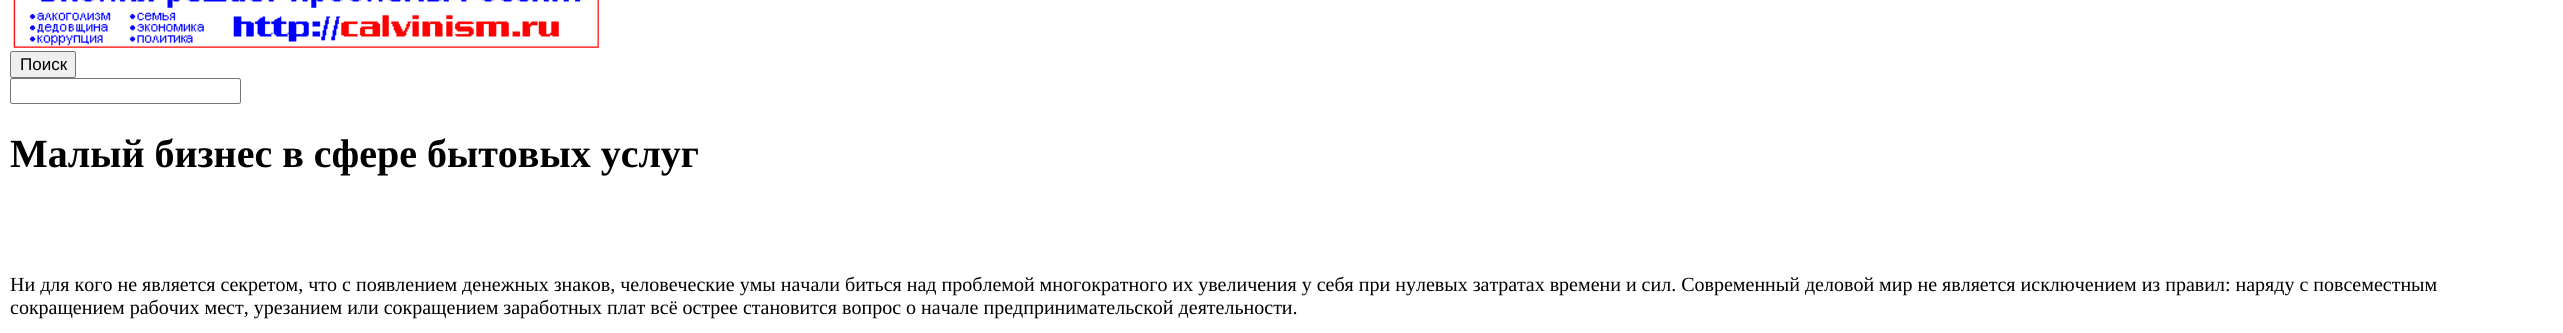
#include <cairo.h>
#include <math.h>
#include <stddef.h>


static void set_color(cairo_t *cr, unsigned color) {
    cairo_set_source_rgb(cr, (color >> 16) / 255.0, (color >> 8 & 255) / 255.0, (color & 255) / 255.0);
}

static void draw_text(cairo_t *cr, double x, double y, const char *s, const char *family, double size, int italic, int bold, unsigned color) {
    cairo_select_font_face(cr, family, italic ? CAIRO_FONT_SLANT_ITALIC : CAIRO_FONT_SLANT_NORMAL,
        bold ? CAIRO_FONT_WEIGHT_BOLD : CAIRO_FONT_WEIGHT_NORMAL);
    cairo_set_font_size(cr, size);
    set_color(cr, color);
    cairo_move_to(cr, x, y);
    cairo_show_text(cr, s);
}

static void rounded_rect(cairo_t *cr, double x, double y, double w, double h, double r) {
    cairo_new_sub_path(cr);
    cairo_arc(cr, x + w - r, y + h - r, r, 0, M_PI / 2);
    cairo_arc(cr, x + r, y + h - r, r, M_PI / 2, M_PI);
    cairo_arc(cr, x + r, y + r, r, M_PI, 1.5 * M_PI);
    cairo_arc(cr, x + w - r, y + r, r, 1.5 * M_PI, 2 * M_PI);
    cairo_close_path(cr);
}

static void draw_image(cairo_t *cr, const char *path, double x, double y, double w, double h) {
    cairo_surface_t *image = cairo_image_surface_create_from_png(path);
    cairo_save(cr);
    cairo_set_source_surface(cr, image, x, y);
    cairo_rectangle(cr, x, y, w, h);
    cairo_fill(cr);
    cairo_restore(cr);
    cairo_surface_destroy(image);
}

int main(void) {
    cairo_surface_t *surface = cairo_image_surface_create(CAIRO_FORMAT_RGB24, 2563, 333);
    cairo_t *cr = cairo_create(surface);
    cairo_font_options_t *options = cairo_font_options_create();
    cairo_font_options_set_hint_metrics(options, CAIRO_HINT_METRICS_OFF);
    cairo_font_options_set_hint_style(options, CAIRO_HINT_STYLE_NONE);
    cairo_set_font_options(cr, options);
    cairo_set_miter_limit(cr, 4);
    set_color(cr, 0xFFFFFF);
    cairo_paint(cr);
    draw_image(cr, "assets/img1.png", 13, 0, 586, 48);
    set_color(cr, 0xEFEFEF);
    rounded_rect(cr, 10.5, 51.5, 65, 26, 2);
    cairo_fill_preserve(cr);
    set_color(cr, 0x767676);
    cairo_set_line_width(cr, 1);
    cairo_stroke(cr);
    draw_text(cr, 20, 70, "Поиск", "Liberation Sans", 17, 0, 0, 0x000000);
    rounded_rect(cr, 10.5, 78.5, 230, 25, 2);
    set_color(cr, 0x767676);
    cairo_stroke(cr);
    draw_text(cr, 10, 167, "Малый бизнес в сфере бытовых услуг", "Liberation Serif", 40, 0, 1, 0x000000);
    draw_text(cr, 10, 291, "Ни для кого не является секретом, что с появлением денежных знаков, человеческие умы начали биться над проблемой многократного их увеличения у себя при нулевых затратах времени и сил. Современный деловой мир не является исключением из правил: наряду с повсеместным", "Liberation Serif", 20, 0, 0, 0x000000);
    draw_text(cr, 10, 314, "сокращением рабочих мест, урезанием или сокращением заработных плат всё острее становится вопрос о начале предпринимательской деятельности.", "Liberation Serif", 20, 0, 0, 0x000000);
    cairo_surface_write_to_png(surface, "output.png");
    cairo_font_options_destroy(options);
    cairo_destroy(cr);
    cairo_surface_destroy(surface);
    return 0;
}
